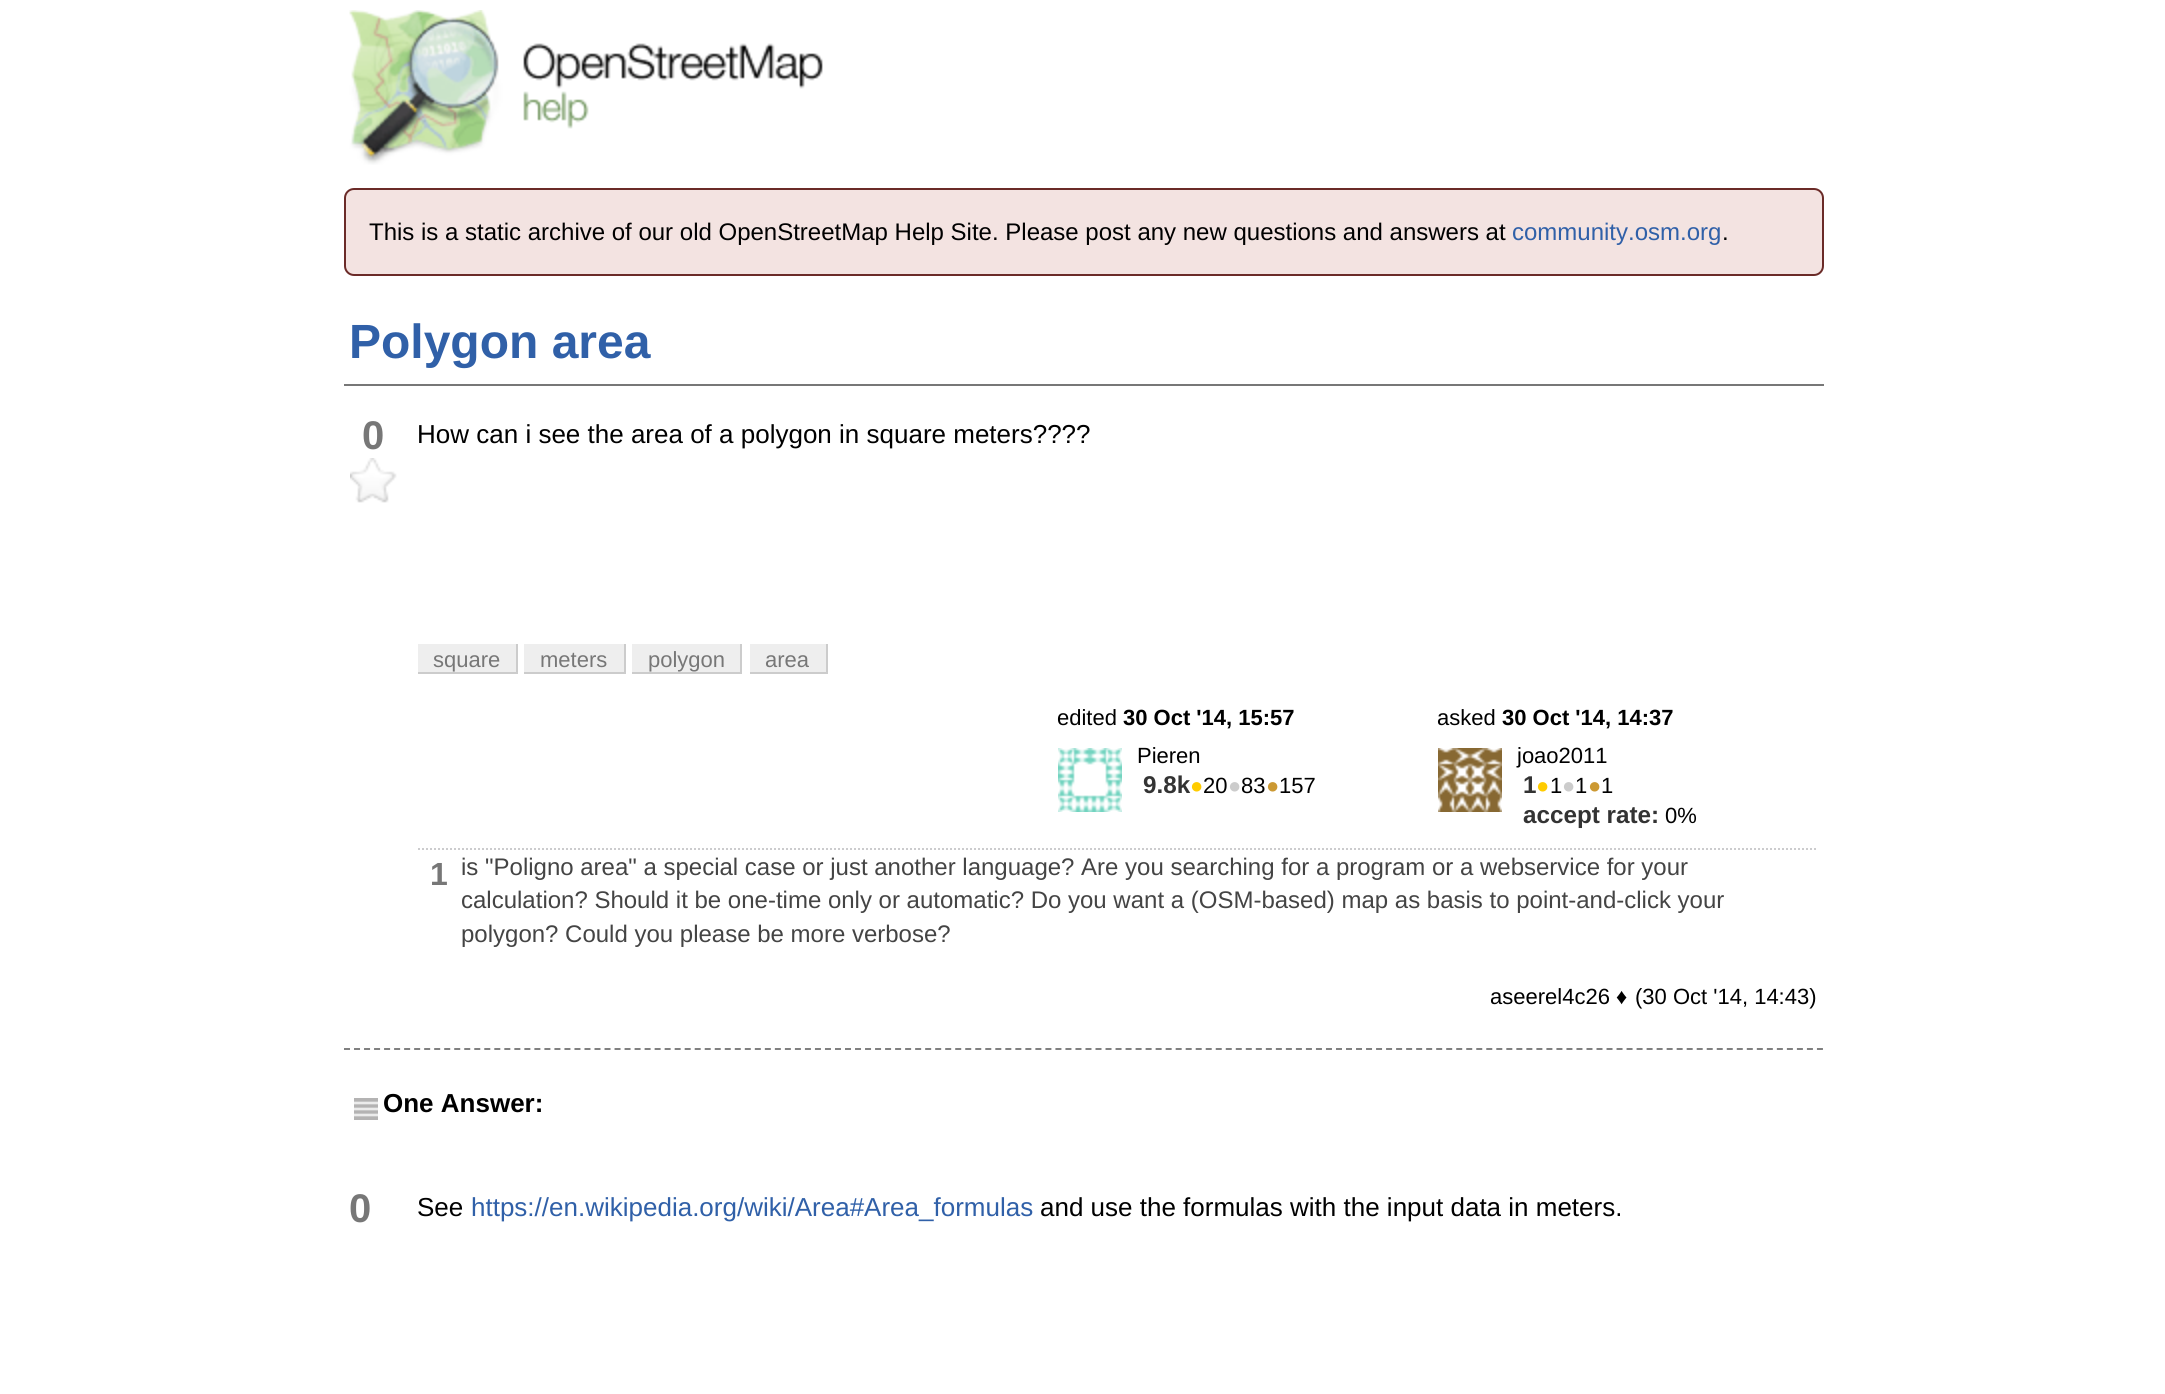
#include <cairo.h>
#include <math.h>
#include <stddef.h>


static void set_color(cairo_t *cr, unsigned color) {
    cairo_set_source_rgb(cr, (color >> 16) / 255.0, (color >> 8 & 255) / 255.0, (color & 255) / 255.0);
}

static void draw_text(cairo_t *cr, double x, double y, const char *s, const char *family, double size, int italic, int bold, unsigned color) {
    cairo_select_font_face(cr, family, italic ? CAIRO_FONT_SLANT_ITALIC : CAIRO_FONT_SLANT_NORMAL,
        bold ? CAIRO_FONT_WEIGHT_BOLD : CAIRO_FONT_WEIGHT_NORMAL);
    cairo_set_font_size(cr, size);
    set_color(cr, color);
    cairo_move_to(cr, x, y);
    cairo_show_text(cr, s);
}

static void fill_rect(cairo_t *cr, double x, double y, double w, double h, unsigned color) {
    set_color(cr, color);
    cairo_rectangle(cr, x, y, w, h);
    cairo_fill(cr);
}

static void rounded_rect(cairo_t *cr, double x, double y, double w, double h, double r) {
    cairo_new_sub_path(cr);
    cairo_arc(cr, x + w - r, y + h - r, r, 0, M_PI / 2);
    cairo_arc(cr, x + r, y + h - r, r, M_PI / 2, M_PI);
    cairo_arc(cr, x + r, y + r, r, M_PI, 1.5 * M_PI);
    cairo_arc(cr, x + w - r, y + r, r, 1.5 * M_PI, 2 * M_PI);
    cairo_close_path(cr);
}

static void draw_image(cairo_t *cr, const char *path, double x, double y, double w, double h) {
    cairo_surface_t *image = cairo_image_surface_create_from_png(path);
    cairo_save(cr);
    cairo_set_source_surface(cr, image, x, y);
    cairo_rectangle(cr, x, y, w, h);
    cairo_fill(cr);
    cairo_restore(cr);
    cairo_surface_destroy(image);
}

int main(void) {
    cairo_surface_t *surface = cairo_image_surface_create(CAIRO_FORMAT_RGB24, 2165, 1394);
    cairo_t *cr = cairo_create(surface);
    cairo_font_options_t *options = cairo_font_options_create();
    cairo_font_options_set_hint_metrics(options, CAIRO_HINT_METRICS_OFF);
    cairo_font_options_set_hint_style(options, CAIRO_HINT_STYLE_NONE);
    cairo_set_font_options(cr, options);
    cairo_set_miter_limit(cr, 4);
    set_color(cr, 0xFFFFFF);
    cairo_paint(cr);
    draw_image(cr, "assets/img1.png", 349, 10, 474, 155);
    set_color(cr, 0xF3E3E1);
    rounded_rect(cr, 345, 189, 1478, 86, 9);
    cairo_fill_preserve(cr);
    set_color(cr, 0x6B2B28);
    cairo_stroke(cr);
    draw_text(cr, 369, 240, "This is a static archive of our old OpenStreetMap Help Site. Please post any new questions and answers at", "Liberation Sans", 24, 0, 0, 0x000000);
    draw_text(cr, 1512, 240, "community.osm.org", "Liberation Sans", 24, 0, 0, 0x3060A8);
    draw_text(cr, 1722, 240, ".", "Liberation Sans", 24, 0, 0, 0x000000);
    fill_rect(cr, 344, 384, 1480, 2, 0x777777);
    draw_text(cr, 349, 358, "Polygon area", "Liberation Sans", 48, 0, 1, 0x3060A8);
    draw_text(cr, 362, 449, "0", "Liberation Sans", 40, 0, 1, 0x777777);
    draw_image(cr, "assets/img2.png", 350, 458, 47, 45);
    draw_text(cr, 417, 443, "How can i see the area of a polygon in square meters?\077?\077", "Liberation Sans", 26, 0, 0, 0x000000);
    fill_rect(cr, 418, 644, 98, 28, 0xEEEEEE);
    draw_text(cr, 433, 667, "square", "Liberation Sans", 22, 0, 0, 0x777777);
    fill_rect(cr, 516, 644, 2, 30, 0xCCCCCC);
    fill_rect(cr, 418, 672, 100, 2, 0xCCCCCC);
    fill_rect(cr, 524, 644, 100, 28, 0xEEEEEE);
    draw_text(cr, 540, 667, "meters", "Liberation Sans", 22, 0, 0, 0x777777);
    fill_rect(cr, 624, 644, 2, 30, 0xCCCCCC);
    fill_rect(cr, 524, 672, 102, 2, 0xCCCCCC);
    fill_rect(cr, 632, 644, 108, 28, 0xEEEEEE);
    draw_text(cr, 648, 667, "polygon", "Liberation Sans", 22, 0, 0, 0x777777);
    fill_rect(cr, 740, 644, 2, 30, 0xCCCCCC);
    fill_rect(cr, 632, 672, 110, 2, 0xCCCCCC);
    fill_rect(cr, 750, 644, 76, 28, 0xEEEEEE);
    draw_text(cr, 765, 667, "area", "Liberation Sans", 22, 0, 0, 0x777777);
    fill_rect(cr, 826, 644, 2, 30, 0xCCCCCC);
    fill_rect(cr, 750, 672, 78, 2, 0xCCCCCC);
    draw_text(cr, 1057, 725, "edited", "Liberation Sans", 22, 0, 0, 0x000000);
    draw_text(cr, 1123, 725, "30 Oct '14, 15:57", "Liberation Sans", 22, 0, 1, 0x000000);
    draw_image(cr, "assets/img3.png", 1058, 748, 64, 64);
    draw_text(cr, 1137, 763, "Pieren", "Liberation Sans", 22, 0, 0, 0x000000);
    draw_text(cr, 1143, 793, "9.8k", "Liberation Sans", 24.25, 0, 1, 0x333333);
    draw_text(cr, 1190, 793, "●", "Liberation Sans", 22, 0, 0, 0xFFCC00);
    draw_text(cr, 1203, 793, "20", "Liberation Sans", 22, 0, 0, 0x000000);
    draw_text(cr, 1228, 793, "●", "Liberation Sans", 22, 0, 0, 0xCCCCCC);
    draw_text(cr, 1241, 793, "83", "Liberation Sans", 22, 0, 0, 0x000000);
    draw_text(cr, 1266, 793, "●", "Liberation Sans", 22, 0, 0, 0xCC9933);
    draw_text(cr, 1279, 793, "157", "Liberation Sans", 22, 0, 0, 0x000000);
    draw_text(cr, 1437, 725, "asked", "Liberation Sans", 22, 0, 0, 0x000000);
    draw_text(cr, 1502, 725, "30 Oct '14, 14:37", "Liberation Sans", 22, 0, 1, 0x000000);
    draw_image(cr, "assets/img4.png", 1438, 748, 64, 64);
    draw_text(cr, 1517, 763, "joao2011", "Liberation Sans", 22, 0, 0, 0x000000);
    draw_text(cr, 1523, 793, "1", "Liberation Sans", 24.25, 0, 1, 0x333333);
    draw_text(cr, 1536, 793, "●", "Liberation Sans", 22, 0, 0, 0xFFCC00);
    draw_text(cr, 1550, 793, "1", "Liberation Sans", 22, 0, 0, 0x000000);
    draw_text(cr, 1562, 793, "●", "Liberation Sans", 22, 0, 0, 0xCCCCCC);
    draw_text(cr, 1575, 793, "1", "Liberation Sans", 22, 0, 0, 0x000000);
    draw_text(cr, 1588, 793, "●", "Liberation Sans", 22, 0, 0, 0xCC9933);
    draw_text(cr, 1601, 793, "1", "Liberation Sans", 22, 0, 0, 0x000000);
    draw_text(cr, 1523, 823, "accept rate:", "Liberation Sans", 24.25, 0, 1, 0x333333);
    draw_text(cr, 1665, 823, "0%", "Liberation Sans", 22, 0, 0, 0x000000);
    cairo_new_path(cr);
    cairo_move_to(cr, 418, 849);
    cairo_line_to(cr, 1818, 849);
    set_color(cr, 0xCCCCCE);
    cairo_set_dash(cr, (double[]){2, 2}, 2, 0);
    cairo_stroke(cr);
    draw_text(cr, 430, 885, "1", "Liberation Sans", 32, 0, 1, 0x777777);
    draw_text(cr, 461, 875, "is \"Poligno area\" a special case or just another language? Are you searching for a program or a webservice for your", "Liberation Sans", 24, 0, 0, 0x444444);
    draw_text(cr, 461, 908, "calculation? Should it be one-time only or automatic? Do you want a (OSM-based) map as basis to point-and-click your", "Liberation Sans", 24, 0, 0, 0x444444);
    draw_text(cr, 461, 942, "polygon? Could you please be more verbose?", "Liberation Sans", 24, 0, 0, 0x444444);
    draw_text(cr, 1490, 1004, "aseerel4c26 ♦", "Liberation Sans", 22, 0, 0, 0x000000);
    draw_text(cr, 1635, 1004, "(30 Oct '14, 14:43)", "Liberation Sans", 22, 0, 0, 0x000000);
    cairo_new_path(cr);
    cairo_move_to(cr, 344, 1049);
    cairo_line_to(cr, 1824, 1049);
    set_color(cr, 0x808080);
    cairo_set_dash(cr, (double[]){6, 4.02}, 2, 0);
    cairo_stroke(cr);
    draw_image(cr, "assets/img5.png", 354, 1098, 24, 22);
    draw_text(cr, 383, 1112, "One Answer:", "Liberation Sans", 26, 0, 1, 0x000000);
    draw_text(cr, 349, 1222, "0", "Liberation Sans", 40, 0, 1, 0x777777);
    draw_text(cr, 417, 1216, "See", "Liberation Sans", 26, 0, 0, 0x000000);
    draw_text(cr, 471, 1216, "https://en.wikipedia.org/wiki/Area#Area_formulas", "Liberation Sans", 26, 0, 0, 0x3060A8);
    draw_text(cr, 1040, 1216, "and use the formulas with the input data in meters.", "Liberation Sans", 26, 0, 0, 0x000000);
    cairo_surface_write_to_png(surface, "output.png");
    cairo_font_options_destroy(options);
    cairo_destroy(cr);
    cairo_surface_destroy(surface);
    return 0;
}
